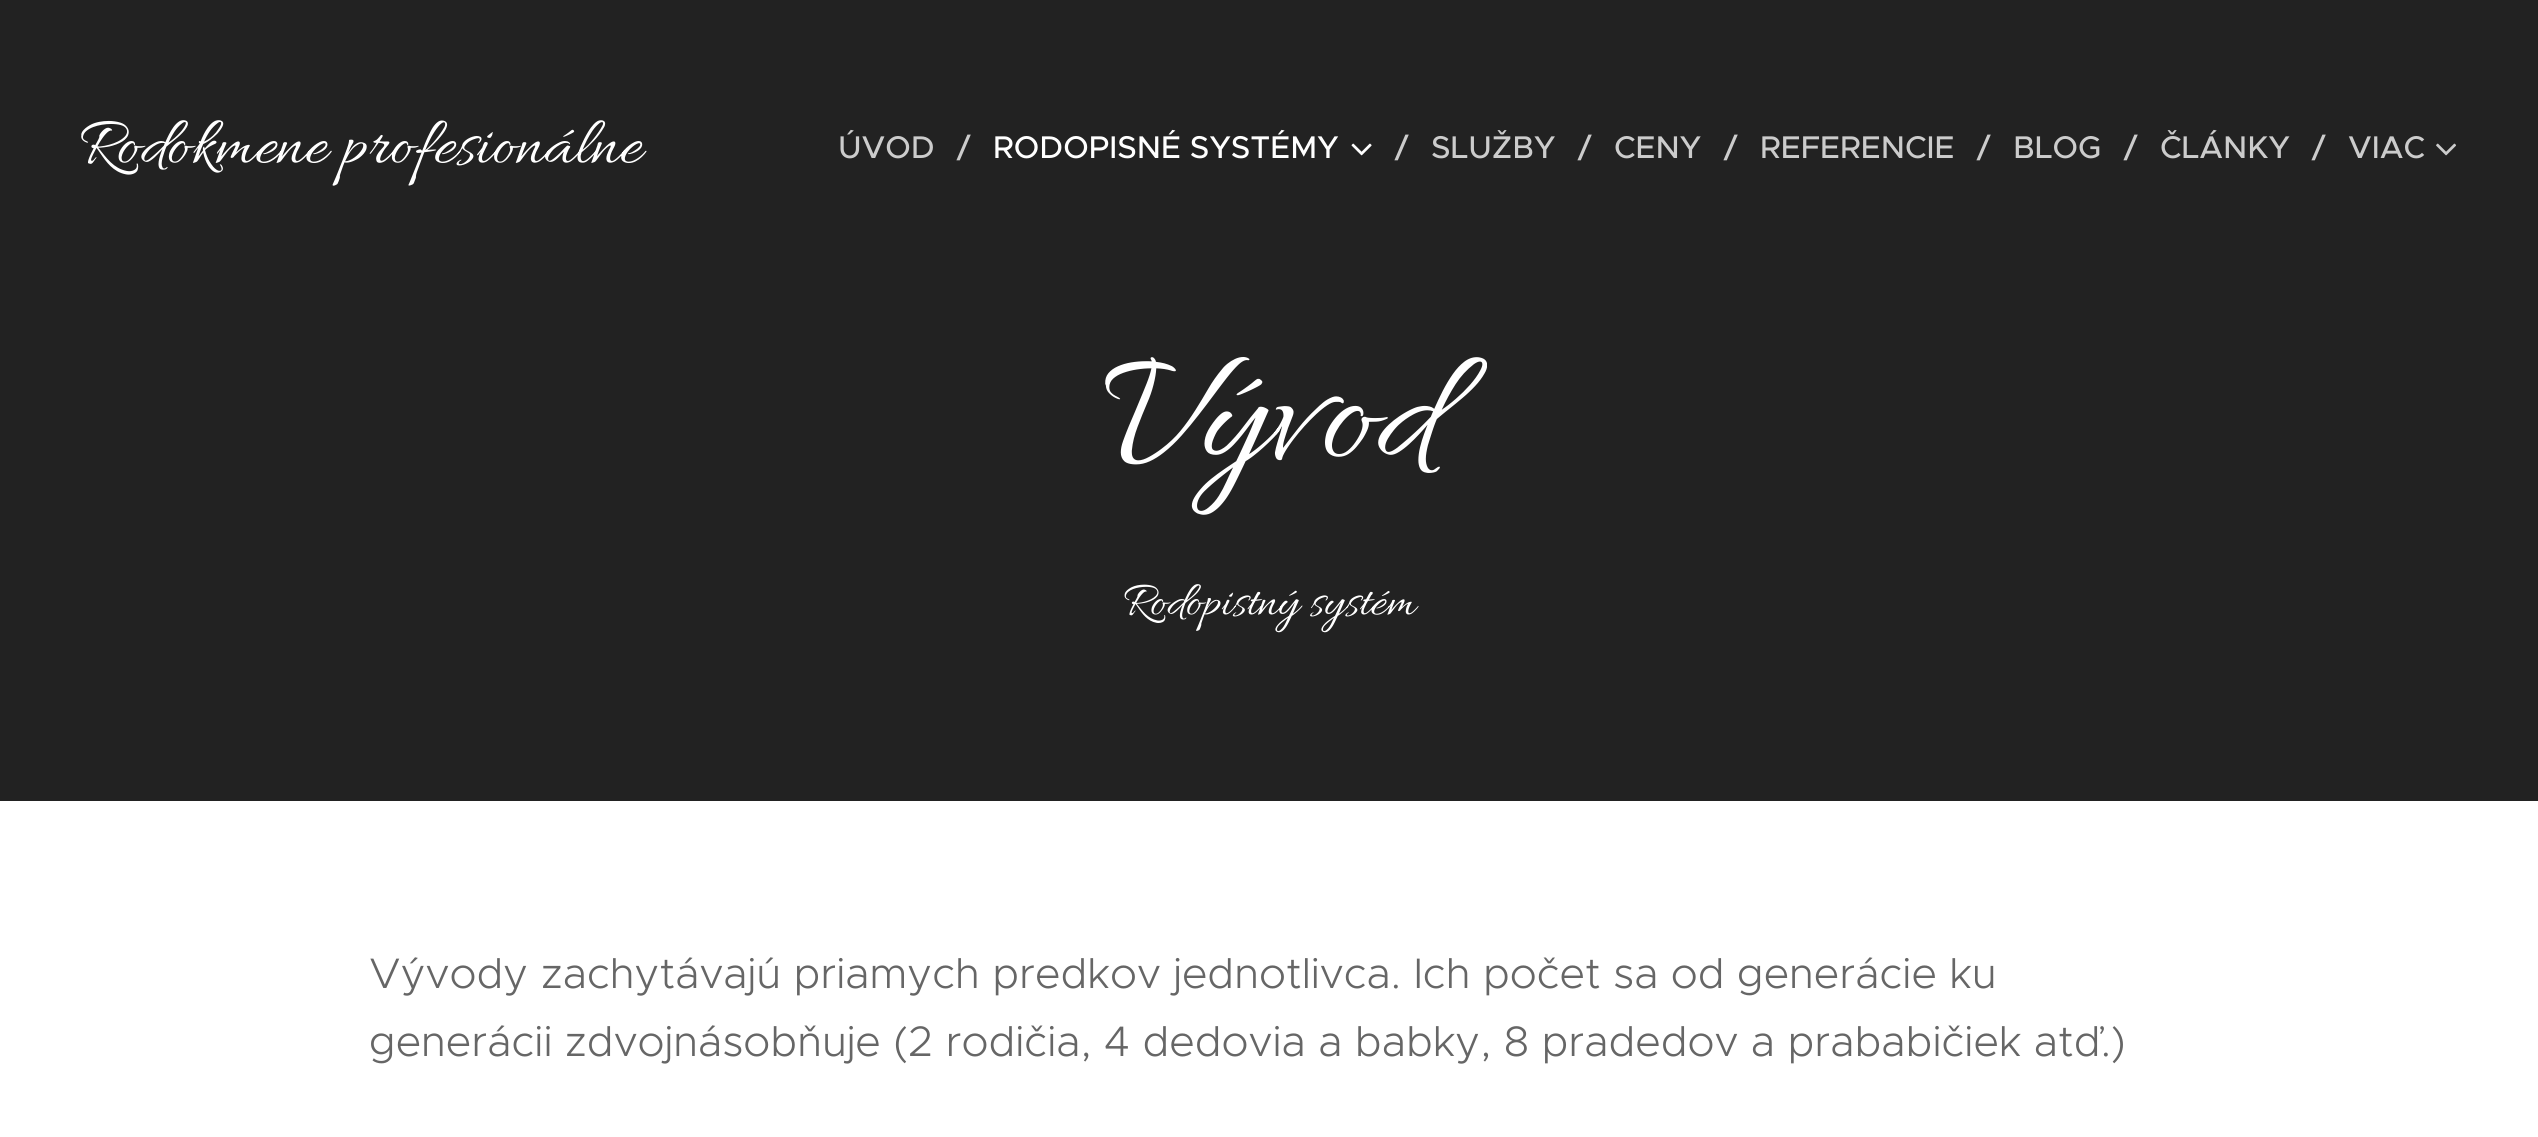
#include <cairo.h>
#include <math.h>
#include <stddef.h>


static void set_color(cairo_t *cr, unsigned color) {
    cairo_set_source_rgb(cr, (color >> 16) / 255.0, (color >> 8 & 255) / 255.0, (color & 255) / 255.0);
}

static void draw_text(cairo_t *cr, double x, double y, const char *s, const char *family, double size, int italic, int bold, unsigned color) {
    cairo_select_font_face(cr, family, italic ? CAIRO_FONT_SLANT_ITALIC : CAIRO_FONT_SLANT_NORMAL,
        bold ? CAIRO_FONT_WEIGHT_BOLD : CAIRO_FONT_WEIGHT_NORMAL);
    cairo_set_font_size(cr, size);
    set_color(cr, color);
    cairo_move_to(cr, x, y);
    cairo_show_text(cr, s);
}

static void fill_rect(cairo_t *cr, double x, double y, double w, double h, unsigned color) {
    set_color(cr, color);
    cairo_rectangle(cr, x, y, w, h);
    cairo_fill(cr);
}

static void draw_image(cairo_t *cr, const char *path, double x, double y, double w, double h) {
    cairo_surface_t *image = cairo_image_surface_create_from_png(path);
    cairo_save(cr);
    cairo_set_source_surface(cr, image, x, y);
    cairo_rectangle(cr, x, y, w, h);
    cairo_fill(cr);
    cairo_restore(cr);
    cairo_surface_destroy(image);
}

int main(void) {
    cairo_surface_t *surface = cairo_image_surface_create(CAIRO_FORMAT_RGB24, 2538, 1137);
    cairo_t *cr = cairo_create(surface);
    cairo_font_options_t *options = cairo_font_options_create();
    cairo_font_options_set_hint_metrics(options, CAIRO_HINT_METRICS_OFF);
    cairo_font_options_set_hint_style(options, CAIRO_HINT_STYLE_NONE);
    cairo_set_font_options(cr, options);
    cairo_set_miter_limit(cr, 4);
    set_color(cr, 0xFFFFFF);
    cairo_paint(cr);
    fill_rect(cr, 0, 0, 2538, 801, 0x222222);
    draw_text(cr, 79, 162, "Rodokmene profesionálne", "Allura", 69.25, 0, 0, 0xFFFFFF);
    draw_text(cr, 838, 158, "ÚVOD", "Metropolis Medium", 31.5, 0, 0, 0xCCCCCC);
    draw_text(cr, 957, 158, "/", "Metropolis Medium", 31.5, 0, 0, 0xCCCCCC);
    draw_text(cr, 993, 158, "RODOPISNÉ SYSTÉMY", "Metropolis Medium", 31.5, 0, 0, 0xFFFFFF);
    draw_text(cr, 1395, 158, "/", "Metropolis Medium", 31.5, 0, 0, 0xCCCCCC);
    draw_image(cr, "assets/img1.png", 1351, 143, 21, 13);
    draw_text(cr, 1431, 158, "SLUŽBY", "Metropolis Medium", 31.5, 0, 0, 0xCCCCCC);
    draw_text(cr, 1578, 158, "/", "Metropolis Medium", 31.5, 0, 0, 0xCCCCCC);
    draw_text(cr, 1614, 158, "CENY", "Metropolis Medium", 31.5, 0, 0, 0xCCCCCC);
    draw_text(cr, 1724, 158, "/", "Metropolis Medium", 31.5, 0, 0, 0xCCCCCC);
    draw_text(cr, 1760, 158, "REFERENCIE", "Metropolis Medium", 31.5, 0, 0, 0xCCCCCC);
    draw_text(cr, 1977, 158, "/", "Metropolis Medium", 31.5, 0, 0, 0xCCCCCC);
    draw_text(cr, 2013, 158, "BLOG", "Metropolis Medium", 31.5, 0, 0, 0xCCCCCC);
    draw_text(cr, 2124, 158, "/", "Metropolis Medium", 31.5, 0, 0, 0xCCCCCC);
    draw_text(cr, 2160, 158, "ČLÁNKY", "Metropolis Medium", 31.5, 0, 0, 0xCCCCCC);
    draw_text(cr, 2312, 158, "/", "Metropolis Medium", 31.5, 0, 0, 0xCCCCCC);
    draw_text(cr, 2348, 158, "VIAC", "Metropolis Medium", 31.5, 0, 0, 0xCCCCCC);
    draw_image(cr, "assets/img2.png", 2436, 143, 20, 13);
    draw_text(cr, 1102, 455, "Vývod", "Allura", 162, 0, 0, 0xFFFFFF);
    draw_text(cr, 1123, 614, "Rodopistný systém", "Allura", 49.5, 0, 0, 0xFFFFFF);
    draw_text(cr, 369, 988, "Vývody zachytávajú priamych predkov jednotlivca. Ich počet sa od generácie ku", "Metropolis Light", 42.75, 0, 0, 0x666666);
    draw_text(cr, 369, 1056, "generácii zdvojnásobňuje (2 rodičia, 4 dedovia a babky, 8 pradedov a prababičiek atď.)", "Metropolis Light", 42.75, 0, 0, 0x666666);
    cairo_surface_write_to_png(surface, "output.png");
    cairo_font_options_destroy(options);
    cairo_destroy(cr);
    cairo_surface_destroy(surface);
    return 0;
}
